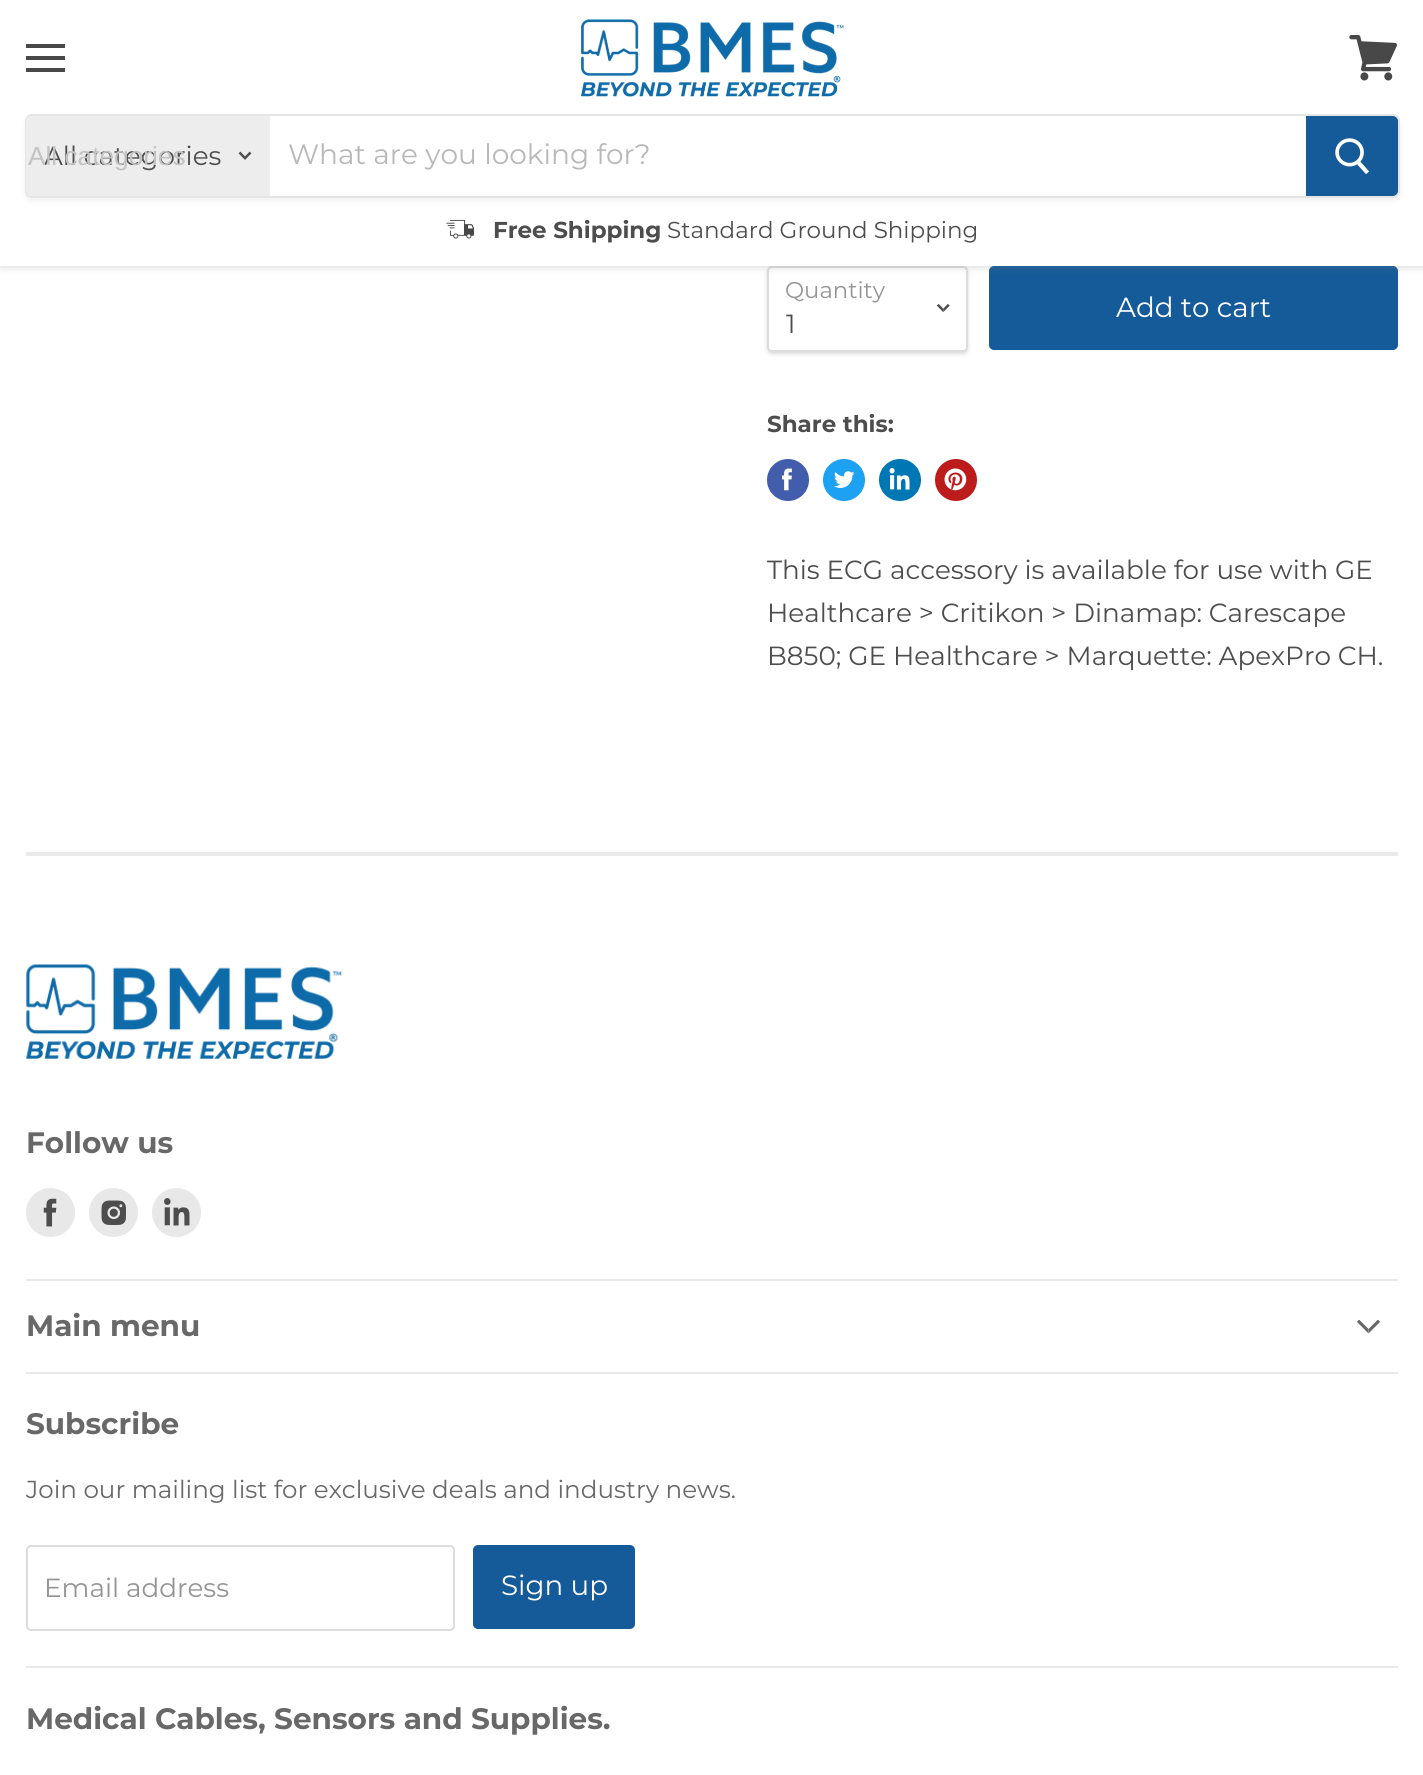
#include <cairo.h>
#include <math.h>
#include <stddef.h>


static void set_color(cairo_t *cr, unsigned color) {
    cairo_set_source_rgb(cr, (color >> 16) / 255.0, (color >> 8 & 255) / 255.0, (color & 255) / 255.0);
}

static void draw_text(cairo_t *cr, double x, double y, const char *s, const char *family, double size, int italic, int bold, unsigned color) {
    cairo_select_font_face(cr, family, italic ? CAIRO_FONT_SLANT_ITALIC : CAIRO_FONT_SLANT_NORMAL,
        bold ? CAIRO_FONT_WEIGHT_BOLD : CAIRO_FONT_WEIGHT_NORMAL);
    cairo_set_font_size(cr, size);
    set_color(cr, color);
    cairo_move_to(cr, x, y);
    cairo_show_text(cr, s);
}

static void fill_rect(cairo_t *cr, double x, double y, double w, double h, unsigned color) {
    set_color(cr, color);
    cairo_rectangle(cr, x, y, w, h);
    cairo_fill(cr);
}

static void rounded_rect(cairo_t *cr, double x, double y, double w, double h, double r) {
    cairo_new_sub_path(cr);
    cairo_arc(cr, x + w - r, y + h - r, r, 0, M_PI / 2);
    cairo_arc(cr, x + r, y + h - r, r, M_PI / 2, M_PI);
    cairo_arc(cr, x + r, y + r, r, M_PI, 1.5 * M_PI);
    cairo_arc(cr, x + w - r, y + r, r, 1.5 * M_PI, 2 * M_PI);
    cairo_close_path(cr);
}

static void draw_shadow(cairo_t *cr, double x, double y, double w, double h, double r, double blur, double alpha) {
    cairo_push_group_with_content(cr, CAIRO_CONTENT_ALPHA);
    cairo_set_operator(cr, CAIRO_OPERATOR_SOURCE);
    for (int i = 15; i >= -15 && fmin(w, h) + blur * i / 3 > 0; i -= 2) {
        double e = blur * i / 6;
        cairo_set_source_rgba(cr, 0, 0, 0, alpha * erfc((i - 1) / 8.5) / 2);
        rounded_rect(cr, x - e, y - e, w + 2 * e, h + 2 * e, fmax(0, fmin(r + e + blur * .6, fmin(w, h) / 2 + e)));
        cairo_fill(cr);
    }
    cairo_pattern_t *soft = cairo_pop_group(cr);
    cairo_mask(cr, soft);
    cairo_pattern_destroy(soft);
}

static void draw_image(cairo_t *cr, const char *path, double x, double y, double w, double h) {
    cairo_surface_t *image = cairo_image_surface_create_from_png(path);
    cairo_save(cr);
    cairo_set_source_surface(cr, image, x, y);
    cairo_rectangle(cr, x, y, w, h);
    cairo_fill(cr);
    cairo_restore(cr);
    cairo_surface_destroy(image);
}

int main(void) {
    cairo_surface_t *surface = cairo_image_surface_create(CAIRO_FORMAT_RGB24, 1423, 1775);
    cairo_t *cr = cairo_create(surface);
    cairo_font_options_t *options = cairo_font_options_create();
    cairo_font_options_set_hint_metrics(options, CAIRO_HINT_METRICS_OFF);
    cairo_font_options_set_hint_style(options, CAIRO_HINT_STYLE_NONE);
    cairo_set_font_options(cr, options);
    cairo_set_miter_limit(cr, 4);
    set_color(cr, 0xFFFFFF);
    cairo_paint(cr);
    set_color(cr, 0x000000);
    draw_shadow(cr, 767, 268, 201, 86, 5, 2, 0.15);
    set_color(cr, 0xFFFFFF);
    rounded_rect(cr, 768, 267, 199, 84, 4);
    cairo_fill_preserve(cr);
    set_color(cr, 0xDDDDDD);
    cairo_stroke(cr);
    set_color(cr, 0x155B99);
    rounded_rect(cr, 990, 267, 407, 82, 4);
    cairo_fill_preserve(cr);
    cairo_stroke(cr);
    set_color(cr, 0x7F7F7F);
    draw_shadow(cr, 0, 2, 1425, 266, 0, 3.5, 0.25);
    fill_rect(cr, 0, 0, 1423, 266, 0xFFFFFF);
    fill_rect(cr, 26, 44, 39, 4, 0x484848);
    fill_rect(cr, 26, 56, 39, 4, 0x484848);
    fill_rect(cr, 26, 68, 39, 4, 0x484848);
    draw_image(cr, "assets/img1.png", 1349, 35, 48, 46);
    draw_image(cr, "assets/img2.png", 581, 19, 263, 78);
    cairo_save(cr);
    cairo_set_fill_rule(cr, CAIRO_FILL_RULE_EVEN_ODD);
    cairo_new_path(cr);
    cairo_move_to(cr, 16, 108);
    cairo_line_to(cr, 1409, 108);
    cairo_line_to(cr, 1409, 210);
    cairo_line_to(cr, 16, 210);
    cairo_close_path(cr);
    cairo_move_to(cr, 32, 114);
    cairo_line_to(cr, 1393, 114);
    cairo_curve_to(cr, 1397, 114, 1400, 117, 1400, 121);
    cairo_line_to(cr, 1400, 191);
    cairo_curve_to(cr, 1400, 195, 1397, 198, 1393, 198);
    cairo_line_to(cr, 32, 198);
    cairo_curve_to(cr, 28, 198, 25, 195, 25, 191);
    cairo_line_to(cr, 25, 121);
    cairo_curve_to(cr, 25, 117, 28, 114, 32, 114);
    cairo_close_path(cr);
    cairo_clip(cr);
    set_color(cr, 0x7F7F7F);
    draw_shadow(cr, 25, 117, 1375, 84, 7, 2.5, 0.11);
    cairo_restore(cr);
    rounded_rect(cr, 26, 115, 1373, 82, 6);
    cairo_set_source_rgba(cr, 0.498, 0.498, 0.498, 0.2);
    cairo_stroke(cr);
    set_color(cr, 0xEDEDED);
    cairo_new_path(cr);
    cairo_move_to(cr, 31, 116);
    cairo_line_to(cr, 270, 116);
    cairo_line_to(cr, 270, 196);
    cairo_line_to(cr, 31, 196);
    cairo_curve_to(cr, 28, 196, 26, 194, 26, 191);
    cairo_line_to(cr, 26, 121);
    cairo_curve_to(cr, 26, 118, 28, 116, 31, 116);
    cairo_close_path(cr);
    cairo_fill(cr);
    draw_text(cr, 44, 165, "All categories", "Montserrat", 26.25, 0, 0, 0x4D4D4D);
    draw_text(cr, 28, 165, "All categories", "Liberation Sans", 26.25, 0, 0, 0xC3C3C3);
    draw_image(cr, "assets/img3.png", 238, 151, 14, 9);
    draw_text(cr, 288, 164, "What are you looking for?", "Montserrat", 28, 0, 0, 0xB8B8B8);
    set_color(cr, 0x155B99);
    cairo_new_path(cr);
    cairo_move_to(cr, 1307, 117);
    cairo_line_to(cr, 1393, 117);
    cairo_curve_to(cr, 1395, 117, 1397, 119, 1397, 121);
    cairo_line_to(cr, 1397, 191);
    cairo_curve_to(cr, 1397, 193, 1395, 195, 1393, 195);
    cairo_line_to(cr, 1307, 195);
    cairo_close_path(cr);
    cairo_fill_preserve(cr);
    cairo_stroke(cr);
    draw_image(cr, "assets/img4.png", 1335, 138, 34, 36);
    draw_image(cr, "assets/img5.png", 446, 219, 28, 20);
    draw_text(cr, 493, 238, "Free Shipping", "Montserrat", 23, 0, 1, 0x4D4D4D);
    draw_text(cr, 667, 238, "Standard Ground Shipping", "Montserrat", 23, 0, 0, 0x4D4D4D);
    draw_text(cr, 785, 298, "Quantity", "Montserrat", 22.75, 0, 0, 0x949494);
    draw_image(cr, "assets/img6.png", 936, 303, 14, 10);
    draw_text(cr, 786, 333, "1", "Montserrat", 26.25, 0, 0, 0x4D4D4D);
    draw_text(cr, 1116, 317, "Add to cart", "Montserrat", 27.75, 0, 0, 0xFFFFFF);
    draw_text(cr, 767, 432, "Share this:", "Montserrat", 23, 0, 1, 0x4D4D4D);
    set_color(cr, 0x425DAB);
    cairo_new_path(cr);
    cairo_arc(cr, 788, 480, 21, 0, 2 * M_PI);
    cairo_fill(cr);
    draw_image(cr, "assets/img7.png", 782, 468, 10, 23);
    set_color(cr, 0x1DA1F2);
    cairo_arc(cr, 844, 480, 21, 0, 2 * M_PI);
    cairo_fill(cr);
    draw_image(cr, "assets/img8.png", 834, 471, 21, 17);
    set_color(cr, 0x0077B5);
    cairo_arc(cr, 900, 480, 21, 0, 2 * M_PI);
    cairo_fill(cr);
    draw_image(cr, "assets/img9.png", 889, 468, 21, 22);
    set_color(cr, 0xBD1C1C);
    cairo_arc(cr, 956, 480, 21, 0, 2 * M_PI);
    cairo_fill(cr);
    draw_image(cr, "assets/img10.png", 944, 468, 23, 23);
    draw_text(cr, 767, 579, "This ECG accessory is available for use with GE", "Montserrat", 26.25, 0, 0, 0x4D4D4D);
    draw_text(cr, 767, 622, "Healthcare > Critikon > Dinamap: Carescape", "Montserrat", 26.25, 0, 0, 0x4D4D4D);
    draw_text(cr, 767, 665, "B850; GE Healthcare > Marquette: ApexPro CH.", "Montserrat", 26.25, 0, 0, 0x4D4D4D);
    fill_rect(cr, 26, 852, 1372, 4, 0xEAEAEA);
    fill_rect(cr, 26, 1279, 1372, 2, 0xE8E8E8);
    draw_image(cr, "assets/img11.png", 26, 964, 316, 95);
    draw_text(cr, 26, 1153, "Follow us", "Montserrat", 29.5, 0, 1, 0x686868);
    set_color(cr, 0xE8E8E8);
    cairo_new_path(cr);
    cairo_arc(cr, 50.5, 1212.5, 24.5, 0, 2 * M_PI);
    cairo_fill(cr);
    draw_image(cr, "assets/img12.png", 43, 1198, 14, 29);
    cairo_arc(cr, 113.5, 1212.5, 24.5, 0, 2 * M_PI);
    cairo_fill(cr);
    draw_image(cr, "assets/img13.png", 101, 1200, 25, 25);
    cairo_arc(cr, 176.5, 1212.5, 24.5, 0, 2 * M_PI);
    cairo_fill(cr);
    draw_image(cr, "assets/img14.png", 164, 1198, 26, 28);
    fill_rect(cr, 26, 1372, 1372, 2, 0xE8E8E8);
    draw_text(cr, 26, 1336, "Main menu", "Montserrat", 29.5, 0, 1, 0x686868);
    draw_image(cr, "assets/img15.png", 1357, 1320, 23, 14);
    fill_rect(cr, 26, 1666, 1372, 2, 0xE8E8E8);
    draw_text(cr, 26, 1434, "Subscribe", "Montserrat", 29.5, 0, 1, 0x686868);
    draw_text(cr, 26, 1498, "Join our mailing list for exclusive deals and industry news.", "Montserrat", 24.6, 0, 0, 0x686868);
    rounded_rect(cr, 27, 1546, 427, 84, 4);
    set_color(cr, 0xDDDDDD);
    cairo_stroke(cr);
    draw_text(cr, 44, 1597, "Email address", "Montserrat", 26.25, 0, 0, 0x949494);
    set_color(cr, 0x155B99);
    rounded_rect(cr, 474, 1546, 160, 82, 4);
    cairo_fill_preserve(cr);
    cairo_stroke(cr);
    draw_text(cr, 501, 1595, "Sign up", "Montserrat", 27.75, 0, 0, 0xFFFFFF);
    draw_text(cr, 26, 1729, "Medical Cables, Sensors and Supplies.", "Montserrat", 29.5, 0, 1, 0x686868);
    cairo_surface_write_to_png(surface, "output.png");
    cairo_font_options_destroy(options);
    cairo_destroy(cr);
    cairo_surface_destroy(surface);
    return 0;
}
